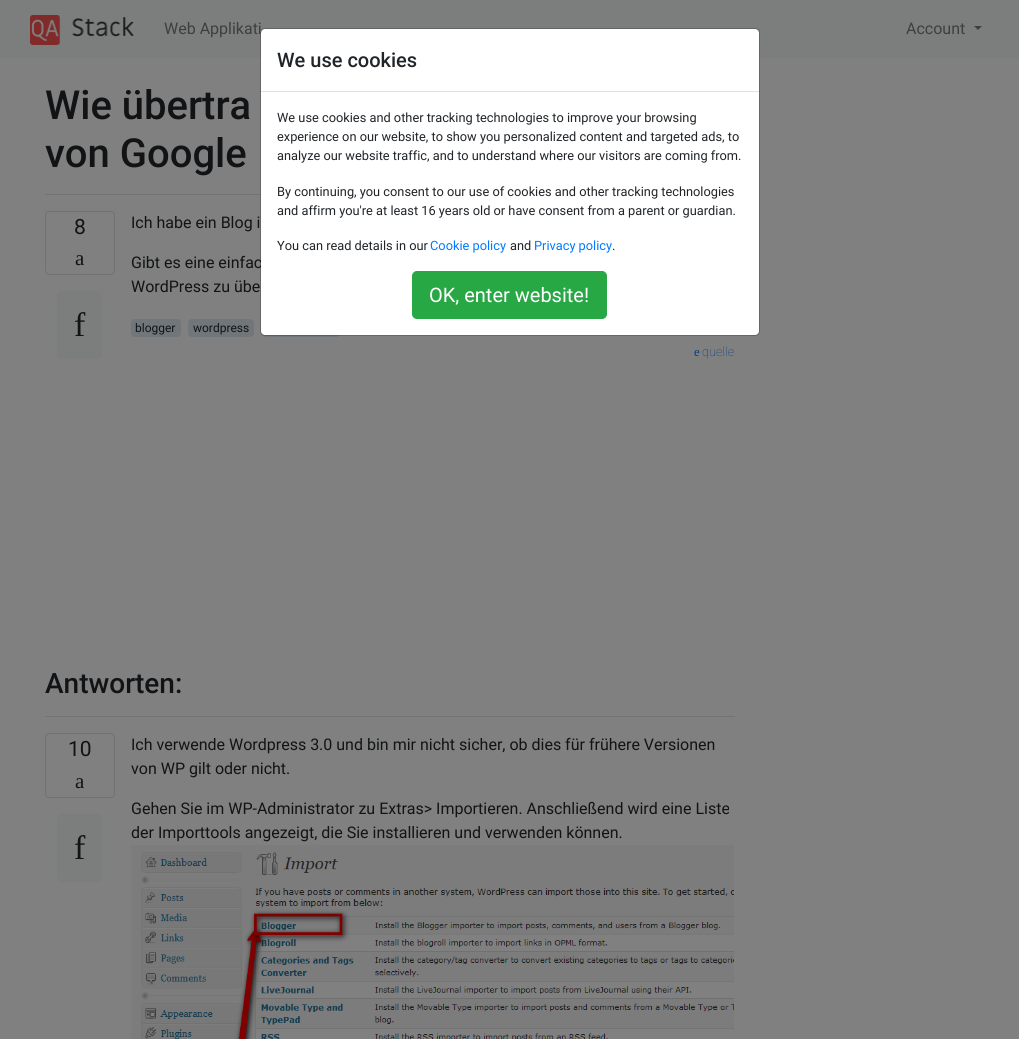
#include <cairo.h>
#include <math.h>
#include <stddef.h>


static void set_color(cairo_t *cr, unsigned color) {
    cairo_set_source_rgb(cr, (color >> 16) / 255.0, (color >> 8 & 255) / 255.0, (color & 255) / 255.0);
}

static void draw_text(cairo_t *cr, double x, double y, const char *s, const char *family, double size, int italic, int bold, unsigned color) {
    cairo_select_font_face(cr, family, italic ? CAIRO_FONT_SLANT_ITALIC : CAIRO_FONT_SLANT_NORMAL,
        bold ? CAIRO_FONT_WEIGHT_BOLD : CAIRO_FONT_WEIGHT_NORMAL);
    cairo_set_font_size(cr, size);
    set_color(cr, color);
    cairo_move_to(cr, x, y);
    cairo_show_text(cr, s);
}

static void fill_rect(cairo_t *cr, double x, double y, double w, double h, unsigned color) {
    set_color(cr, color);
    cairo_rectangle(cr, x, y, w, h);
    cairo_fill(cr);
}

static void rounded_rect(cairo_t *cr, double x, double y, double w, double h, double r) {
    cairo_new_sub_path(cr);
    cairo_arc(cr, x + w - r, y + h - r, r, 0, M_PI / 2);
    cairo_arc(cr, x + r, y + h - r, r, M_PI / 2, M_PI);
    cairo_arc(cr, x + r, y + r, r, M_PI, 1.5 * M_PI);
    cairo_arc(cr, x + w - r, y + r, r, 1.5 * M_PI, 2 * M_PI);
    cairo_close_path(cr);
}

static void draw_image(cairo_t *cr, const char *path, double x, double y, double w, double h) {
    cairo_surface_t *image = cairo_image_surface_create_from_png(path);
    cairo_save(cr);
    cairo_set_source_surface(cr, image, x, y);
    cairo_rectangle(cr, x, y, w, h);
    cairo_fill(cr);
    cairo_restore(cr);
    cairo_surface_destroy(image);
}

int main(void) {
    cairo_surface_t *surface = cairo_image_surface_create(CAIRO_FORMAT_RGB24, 1019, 1039);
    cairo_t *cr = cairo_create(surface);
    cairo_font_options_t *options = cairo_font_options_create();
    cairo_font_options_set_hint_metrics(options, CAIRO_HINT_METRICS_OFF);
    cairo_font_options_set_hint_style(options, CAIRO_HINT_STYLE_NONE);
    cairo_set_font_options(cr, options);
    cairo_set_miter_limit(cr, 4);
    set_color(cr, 0x808080);
    cairo_paint(cr);
    fill_rect(cr, 0, 0, 1019, 58, 0x7C7D7D);
    draw_image(cr, "assets/img1.png", 30, 15, 104, 30);
    draw_text(cr, 164, 34, "Web Applikati", "Roboto", 16, 0, 0, 0x3E3F3F);
    draw_text(cr, 906, 34, "Account", "Roboto", 16, 0, 0, 0x3E3F3F);
    cairo_new_path(cr);
    cairo_move_to(cr, 974, 26);
    cairo_line_to(cr, 982, 26);
    cairo_line_to(cr, 978, 30);
    cairo_close_path(cr);
    cairo_fill(cr);
    draw_text(cr, 131, 268, "Gibt es eine einfac", "Roboto", 16, 0, 0, 0x111315);
    set_color(cr, 0x71767A);
    rounded_rect(cr, 262, 319, 78, 18, 4);
    cairo_fill(cr);
    set_color(cr, 0xFFFFFF);
    rounded_rect(cr, 261, 29, 498, 306, 4);
    cairo_fill(cr);
    fill_rect(cr, 45, 194, 216, 1, 0x737373);
    rounded_rect(cr, 260.5, 28.5, 499, 307, 4.5);
    cairo_set_source_rgba(cr, 0, 0, 0, 0.2);
    cairo_set_line_width(cr, 1);
    cairo_stroke(cr);
    fill_rect(cr, 261, 91, 498, 1, 0xDEE2E6);
    draw_text(cr, 277, 67, "We use cookies", "Roboto Medium", 20, 0, 0, 0x212529);
    draw_text(cr, 277, 122, "We use cookies and other tracking technologies to improve your browsing", "Roboto", 12.8, 0, 0, 0x212529);
    draw_text(cr, 277, 141, "experience on our website, to show you personalized content and targeted ads, to", "Roboto", 12.8, 0, 0, 0x212529);
    draw_text(cr, 277, 160, "analyze our website traffic, and to understand where our visitors are coming from.", "Roboto", 12.8, 0, 0, 0x212529);
    draw_text(cr, 277, 196, "By continuing, you consent to our use of cookies and other tracking technologies", "Roboto", 12.8, 0, 0, 0x212529);
    draw_text(cr, 277, 215, "and affirm you're at least 16 years old or have consent from a parent or guardian.", "Roboto", 12.8, 0, 0, 0x212529);
    draw_text(cr, 277, 250, "You can read details in our", "Roboto", 12.8, 0, 0, 0x212529);
    draw_text(cr, 430, 250, "Cookie policy", "Roboto", 12.8, 0, 0, 0x007BFF);
    draw_text(cr, 510, 250, "and", "Roboto", 12.8, 0, 0, 0x212529);
    draw_text(cr, 534, 250, "Privacy policy", "Roboto", 12.8, 0, 0, 0x007BFF);
    draw_text(cr, 612, 250, ".", "Roboto", 12.8, 0, 0, 0x212529);
    set_color(cr, 0x28A745);
    rounded_rect(cr, 412.5, 271.5, 194, 47, 4.5);
    cairo_fill_preserve(cr);
    cairo_stroke(cr);
    draw_text(cr, 429, 302, "OK, enter website!", "Roboto", 20, 0, 0, 0xFFFFFF);
    draw_text(cr, 45, 119, "Wie übertra", "Roboto Medium", 40, 0, 0, 0x111315);
    draw_text(cr, 45, 167, "von Google", "Roboto Medium", 40, 0, 0, 0x111315);
    rounded_rect(cr, 45.5, 211.5, 69, 63, 3.5);
    set_color(cr, 0x6F7173);
    cairo_stroke(cr);
    draw_text(cr, 74, 234, "8", "Roboto", 21, 0, 0, 0x111315);
    draw_text(cr, 75, 265, "a", "Liberation Serif", 21, 0, 0, 0x111315);
    set_color(cr, 0x7C7D7D);
    rounded_rect(cr, 57, 291, 45, 68, 5);
    cairo_fill(cr);
    draw_text(cr, 74, 336, "f", "Liberation Serif", 34, 0, 0, 0x111315);
    draw_text(cr, 131, 228, "Ich habe ein Blog i", "Roboto", 16, 0, 0, 0x111315);
    draw_text(cr, 131, 292, "WordPress zu übe", "Roboto", 16, 0, 0, 0x111315);
    set_color(cr, 0x71767A);
    rounded_rect(cr, 131, 319, 50, 18, 4);
    cairo_fill(cr);
    draw_text(cr, 135, 332, "blogger", "Roboto", 12, 0, 0, 0x111315);
    set_color(cr, 0x71767A);
    rounded_rect(cr, 188, 319, 66, 18, 4);
    cairo_fill(cr);
    draw_text(cr, 193, 332, "wordpress", "Roboto", 12, 0, 0, 0x111315);
    draw_text(cr, 694, 356, "e", "Liberation Serif", 12.8, 0, 0, 0x003E80);
    draw_text(cr, 702, 356, "quelle", "Roboto Thin", 12.8, 0, 0, 0x003E80);
    draw_text(cr, 45, 693, "Antworten:", "Roboto Medium", 28, 0, 0, 0x111315);
    fill_rect(cr, 45, 716, 690, 1, 0x737373);
    rounded_rect(cr, 45.5, 733.5, 69, 64, 3.5);
    set_color(cr, 0x6F7173);
    cairo_stroke(cr);
    draw_text(cr, 68, 756, "10", "Roboto", 21, 0, 0, 0x111315);
    draw_text(cr, 75, 788, "a", "Liberation Serif", 21, 0, 0, 0x111315);
    set_color(cr, 0x7C7D7D);
    rounded_rect(cr, 57, 814, 45, 68, 5);
    cairo_fill(cr);
    draw_text(cr, 74, 859, "f", "Liberation Serif", 34, 0, 0, 0x111315);
    draw_text(cr, 131, 750, "Ich verwende Wordpress 3.0 und bin mir nicht sicher, ob dies für frühere Versionen", "Roboto", 16, 0, 0, 0x111315);
    draw_text(cr, 131, 774, "von WP gilt oder nicht.", "Roboto", 16, 0, 0, 0x111315);
    draw_text(cr, 131, 814, "Gehen Sie im WP-Administrator zu Extras> Importieren. Anschließend wird eine Liste", "Roboto", 16, 0, 0, 0x111315);
    draw_text(cr, 131, 838, "der Importtools angezeigt, die Sie installieren und verwenden können.", "Roboto", 16, 0, 0, 0x111315);
    draw_image(cr, "assets/img2.png", 131, 845, 603, 194);
    cairo_surface_write_to_png(surface, "output.png");
    cairo_font_options_destroy(options);
    cairo_destroy(cr);
    cairo_surface_destroy(surface);
    return 0;
}
